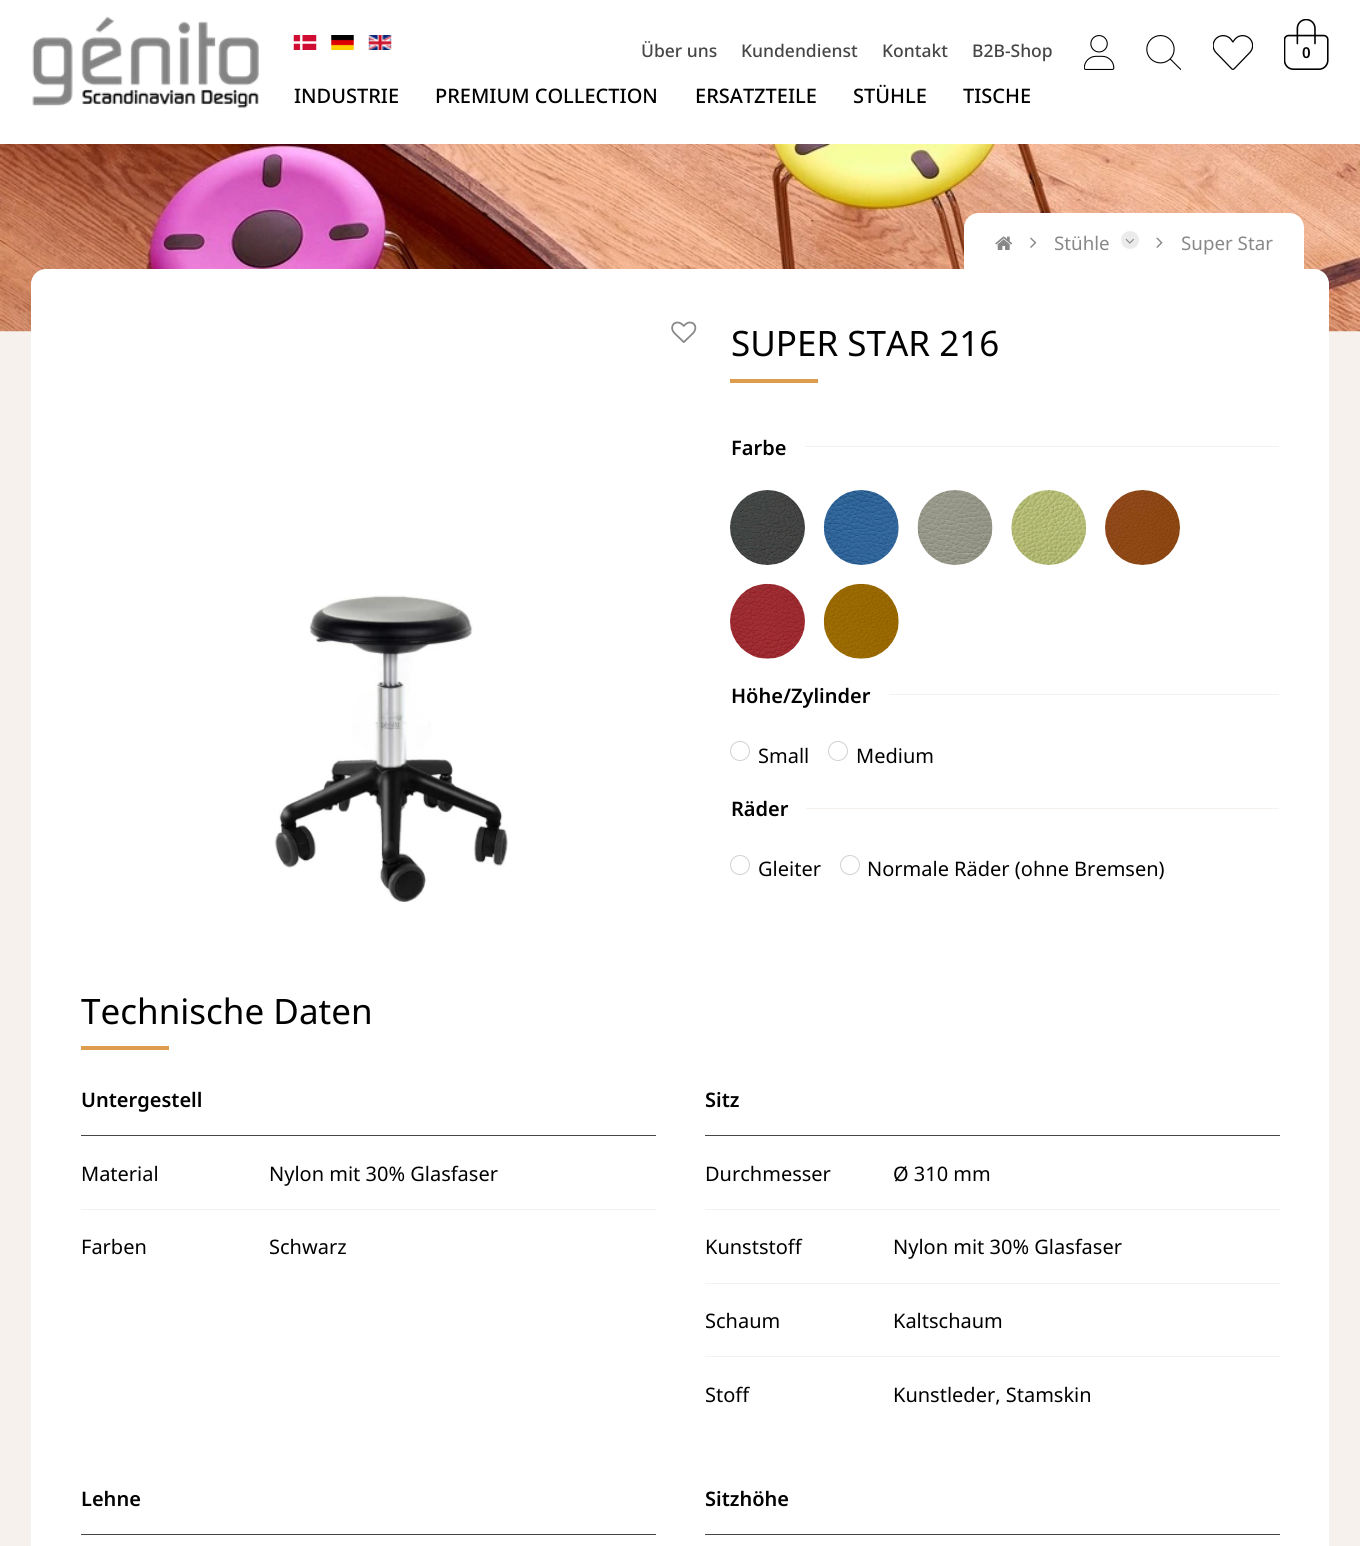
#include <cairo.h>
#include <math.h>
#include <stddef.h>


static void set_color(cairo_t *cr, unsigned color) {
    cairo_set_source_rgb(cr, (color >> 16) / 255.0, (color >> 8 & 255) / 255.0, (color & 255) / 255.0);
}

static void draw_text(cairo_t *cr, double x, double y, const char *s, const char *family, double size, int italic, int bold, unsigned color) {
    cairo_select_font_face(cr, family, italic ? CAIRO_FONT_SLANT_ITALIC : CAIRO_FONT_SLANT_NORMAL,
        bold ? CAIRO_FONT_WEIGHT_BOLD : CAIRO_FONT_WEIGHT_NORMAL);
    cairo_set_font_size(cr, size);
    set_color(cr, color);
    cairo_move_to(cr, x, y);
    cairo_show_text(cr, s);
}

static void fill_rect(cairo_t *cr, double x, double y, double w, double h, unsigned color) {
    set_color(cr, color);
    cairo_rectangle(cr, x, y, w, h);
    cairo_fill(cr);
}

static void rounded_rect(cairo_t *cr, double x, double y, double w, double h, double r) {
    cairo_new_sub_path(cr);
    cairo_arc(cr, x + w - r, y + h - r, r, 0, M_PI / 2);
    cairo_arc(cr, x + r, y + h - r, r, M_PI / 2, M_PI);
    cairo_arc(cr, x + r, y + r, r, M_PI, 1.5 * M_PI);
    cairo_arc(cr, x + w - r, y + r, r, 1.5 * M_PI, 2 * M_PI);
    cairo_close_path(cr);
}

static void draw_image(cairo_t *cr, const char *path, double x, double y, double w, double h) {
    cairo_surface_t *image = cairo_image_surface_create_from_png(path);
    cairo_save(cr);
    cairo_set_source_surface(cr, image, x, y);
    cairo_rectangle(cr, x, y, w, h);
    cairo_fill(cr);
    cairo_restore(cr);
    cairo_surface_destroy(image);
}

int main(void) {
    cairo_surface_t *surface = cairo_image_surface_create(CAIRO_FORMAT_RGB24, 1360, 1546);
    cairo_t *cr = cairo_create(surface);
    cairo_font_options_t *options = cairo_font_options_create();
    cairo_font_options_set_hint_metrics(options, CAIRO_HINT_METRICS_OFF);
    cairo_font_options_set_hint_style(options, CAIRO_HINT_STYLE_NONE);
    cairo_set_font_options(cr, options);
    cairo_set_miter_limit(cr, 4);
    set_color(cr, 0xF6F1ED);
    cairo_paint(cr);
    fill_rect(cr, 0, 0, 1360, 144, 0xFFFFFF);
    draw_image(cr, "assets/img1.png", 32, 16, 227, 92);
    draw_image(cr, "assets/img2.png", 293, 35, 24, 15);
    draw_image(cr, "assets/img3.png", 331, 35, 23, 15);
    draw_image(cr, "assets/img4.png", 368, 35, 24, 15);
    draw_text(cr, 641, 57, "Über uns", "Noto Sans Medium", 17.5, 0, 0, 0x464646);
    draw_text(cr, 741, 57, "Kundendienst", "Noto Sans Medium", 17.5, 0, 0, 0x464646);
    draw_text(cr, 882, 57, "Kontakt", "Noto Sans Medium", 17.5, 0, 0, 0x464646);
    draw_text(cr, 972, 57, "B2B-Shop", "Noto Sans Medium", 17.5, 0, 0, 0x464646);
    draw_image(cr, "assets/img5.png", 1084, 35, 31, 35);
    draw_image(cr, "assets/img6.png", 1146, 35, 35, 35);
    draw_image(cr, "assets/img7.png", 1213, 35, 40, 35);
    draw_image(cr, "assets/img8.png", 1284, 19, 45, 51);
    draw_text(cr, 1302, 58, "0", "Noto Sans SemiBold", 15, 0, 0, 0x000000);
    draw_text(cr, 294, 103, "INDUSTRIE", "Noto Sans Medium", 20, 0, 0, 0x000000);
    draw_text(cr, 435, 103, "PREMIUM COLLECTION", "Noto Sans Medium", 20, 0, 0, 0x000000);
    draw_text(cr, 695, 103, "ERSATZTEILE", "Noto Sans Medium", 20, 0, 0, 0x000000);
    draw_text(cr, 853, 103, "STÜHLE", "Noto Sans Medium", 20, 0, 0, 0x000000);
    draw_text(cr, 963, 103, "TISCHE", "Noto Sans Medium", 20, 0, 0, 0x000000);
    draw_image(cr, "assets/img9.png", 0, 144, 1360, 188);
    set_color(cr, 0xFFFFFF);
    cairo_new_path(cr);
    cairo_move_to(cr, 979, 213);
    cairo_line_to(cr, 1289, 213);
    cairo_curve_to(cr, 1297.5, 213, 1304, 219.5, 1304, 228);
    cairo_line_to(cr, 1304, 269);
    cairo_line_to(cr, 964, 269);
    cairo_line_to(cr, 964, 228);
    cairo_curve_to(cr, 964, 219.5, 970.5, 213, 979, 213);
    cairo_close_path(cr);
    cairo_fill(cr);
    draw_image(cr, "assets/img10.png", 995, 236, 18, 14);
    draw_image(cr, "assets/img11.png", 1030, 237, 7, 11);
    draw_text(cr, 1054, 250, "Stühle", "Noto Sans", 18.75, 0, 0, 0x888888);
    set_color(cr, 0xEBEBEB);
    cairo_new_path(cr);
    cairo_arc(cr, 1130, 240, 9, 0, 2 * M_PI);
    cairo_fill(cr);
    draw_image(cr, "assets/img12.png", 1125, 238, 9, 6);
    draw_image(cr, "assets/img13.png", 1156, 237, 7, 11);
    draw_text(cr, 1181, 250, "Super Star", "Noto Sans", 18.75, 0, 0, 0x888888);
    set_color(cr, 0xFFFFFF);
    rounded_rect(cr, 31, 269, 1298, 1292, 15);
    cairo_fill(cr);
    draw_image(cr, "assets/img14.png", 671, 321, 26, 22);
    draw_image(cr, "assets/img15.png", 274, 595, 234, 307);
    draw_text(cr, 731, 356, "SUPER STAR 216", "Noto Sans", 35, 0, 0, 0x000000);
    fill_rect(cr, 730, 379, 88, 4, 0xDD9D4C);
    draw_text(cr, 731, 455, "Farbe", "Noto Sans SemiBold", 20, 0, 0, 0x000000);
    fill_rect(cr, 805, 446, 474, 1, 0xF6F1ED);
    draw_image(cr, "assets/img16.png", 730, 490, 75, 75);
    draw_image(cr, "assets/img17.png", 823, 490, 76, 75);
    draw_image(cr, "assets/img18.png", 917, 490, 76, 75);
    draw_image(cr, "assets/img19.png", 1011, 490, 76, 75);
    draw_image(cr, "assets/img20.png", 1105, 490, 75, 75);
    draw_image(cr, "assets/img21.png", 730, 583, 75, 76);
    draw_image(cr, "assets/img22.png", 823, 583, 76, 76);
    draw_text(cr, 731, 703, "Höhe/Zylinder", "Noto Sans SemiBold", 20, 0, 0, 0x000000);
    fill_rect(cr, 889, 694, 390, 1, 0xF6F1ED);
    cairo_new_path(cr);
    cairo_arc(cr, 740, 751, 9.5, 0, 2 * M_PI);
    set_color(cr, 0xD1D1D1);
    cairo_set_line_width(cr, 1);
    cairo_stroke(cr);
    draw_text(cr, 758, 763, "Small", "Noto Sans", 20, 0, 0, 0x000000);
    cairo_new_path(cr);
    cairo_arc(cr, 838, 751, 9.5, 0, 2 * M_PI);
    set_color(cr, 0xD1D1D1);
    cairo_stroke(cr);
    draw_text(cr, 856, 763, "Medium", "Noto Sans", 20, 0, 0, 0x000000);
    draw_text(cr, 731, 816, "Räder", "Noto Sans SemiBold", 20, 0, 0, 0x000000);
    fill_rect(cr, 806, 808, 473, 1, 0xF6F1ED);
    cairo_new_path(cr);
    cairo_arc(cr, 740, 865, 9.5, 0, 2 * M_PI);
    set_color(cr, 0xD1D1D1);
    cairo_stroke(cr);
    draw_text(cr, 758, 876, "Gleiter", "Noto Sans", 20, 0, 0, 0x000000);
    cairo_new_path(cr);
    cairo_arc(cr, 850, 865, 9.5, 0, 2 * M_PI);
    set_color(cr, 0xD1D1D1);
    cairo_stroke(cr);
    draw_text(cr, 867, 876, "Normale Räder (ohne Bremsen)", "Noto Sans", 20, 0, 0, 0x000000);
    draw_text(cr, 81, 1024, "Technische Daten", "Noto Sans", 35, 0, 0, 0x000000);
    fill_rect(cr, 81, 1046, 88, 4, 0xDD9D4C);
    fill_rect(cr, 81, 1135, 575, 1, 0x464646);
    draw_text(cr, 81, 1107, "Untergestell", "Noto Sans SemiBold", 20, 0, 0, 0x000000);
    fill_rect(cr, 81, 1209, 575, 1, 0xF6F1ED);
    draw_text(cr, 81, 1181, "Material", "Noto Sans", 20, 0, 0, 0x000000);
    draw_text(cr, 269, 1181, "Nylon mit 30% Glasfaser", "Noto Sans", 20, 0, 0, 0x000000);
    draw_text(cr, 81, 1254, "Farben", "Noto Sans", 20, 0, 0, 0x000000);
    draw_text(cr, 269, 1254, "Schwarz", "Noto Sans", 20, 0, 0, 0x000000);
    fill_rect(cr, 705, 1135, 575, 1, 0x464646);
    draw_text(cr, 705, 1107, "Sitz", "Noto Sans SemiBold", 20, 0, 0, 0x000000);
    fill_rect(cr, 705, 1209, 575, 1, 0xF6F1ED);
    draw_text(cr, 705, 1181, "Durchmesser", "Noto Sans", 20, 0, 0, 0x000000);
    draw_text(cr, 893, 1181, "Ø 310 mm", "Noto Sans", 20, 0, 0, 0x000000);
    fill_rect(cr, 705, 1283, 575, 1, 0xF6F1ED);
    draw_text(cr, 705, 1254, "Kunststoff", "Noto Sans", 20, 0, 0, 0x000000);
    draw_text(cr, 893, 1254, "Nylon mit 30% Glasfaser", "Noto Sans", 20, 0, 0, 0x000000);
    fill_rect(cr, 705, 1356, 575, 1, 0xF6F1ED);
    draw_text(cr, 705, 1328, "Schaum", "Noto Sans", 20, 0, 0, 0x000000);
    draw_text(cr, 893, 1328, "Kaltschaum", "Noto Sans", 20, 0, 0, 0x000000);
    draw_text(cr, 705, 1402, "Stoff", "Noto Sans", 20, 0, 0, 0x000000);
    draw_text(cr, 893, 1402, "Kunstleder, Stamskin", "Noto Sans", 20, 0, 0, 0x000000);
    fill_rect(cr, 81, 1534, 575, 1, 0x464646);
    draw_text(cr, 81, 1506, "Lehne", "Noto Sans SemiBold", 20, 0, 0, 0x000000);
    fill_rect(cr, 705, 1534, 575, 1, 0x464646);
    draw_text(cr, 705, 1506, "Sitzhöhe", "Noto Sans SemiBold", 20, 0, 0, 0x000000);
    cairo_surface_write_to_png(surface, "output.png");
    cairo_font_options_destroy(options);
    cairo_destroy(cr);
    cairo_surface_destroy(surface);
    return 0;
}
